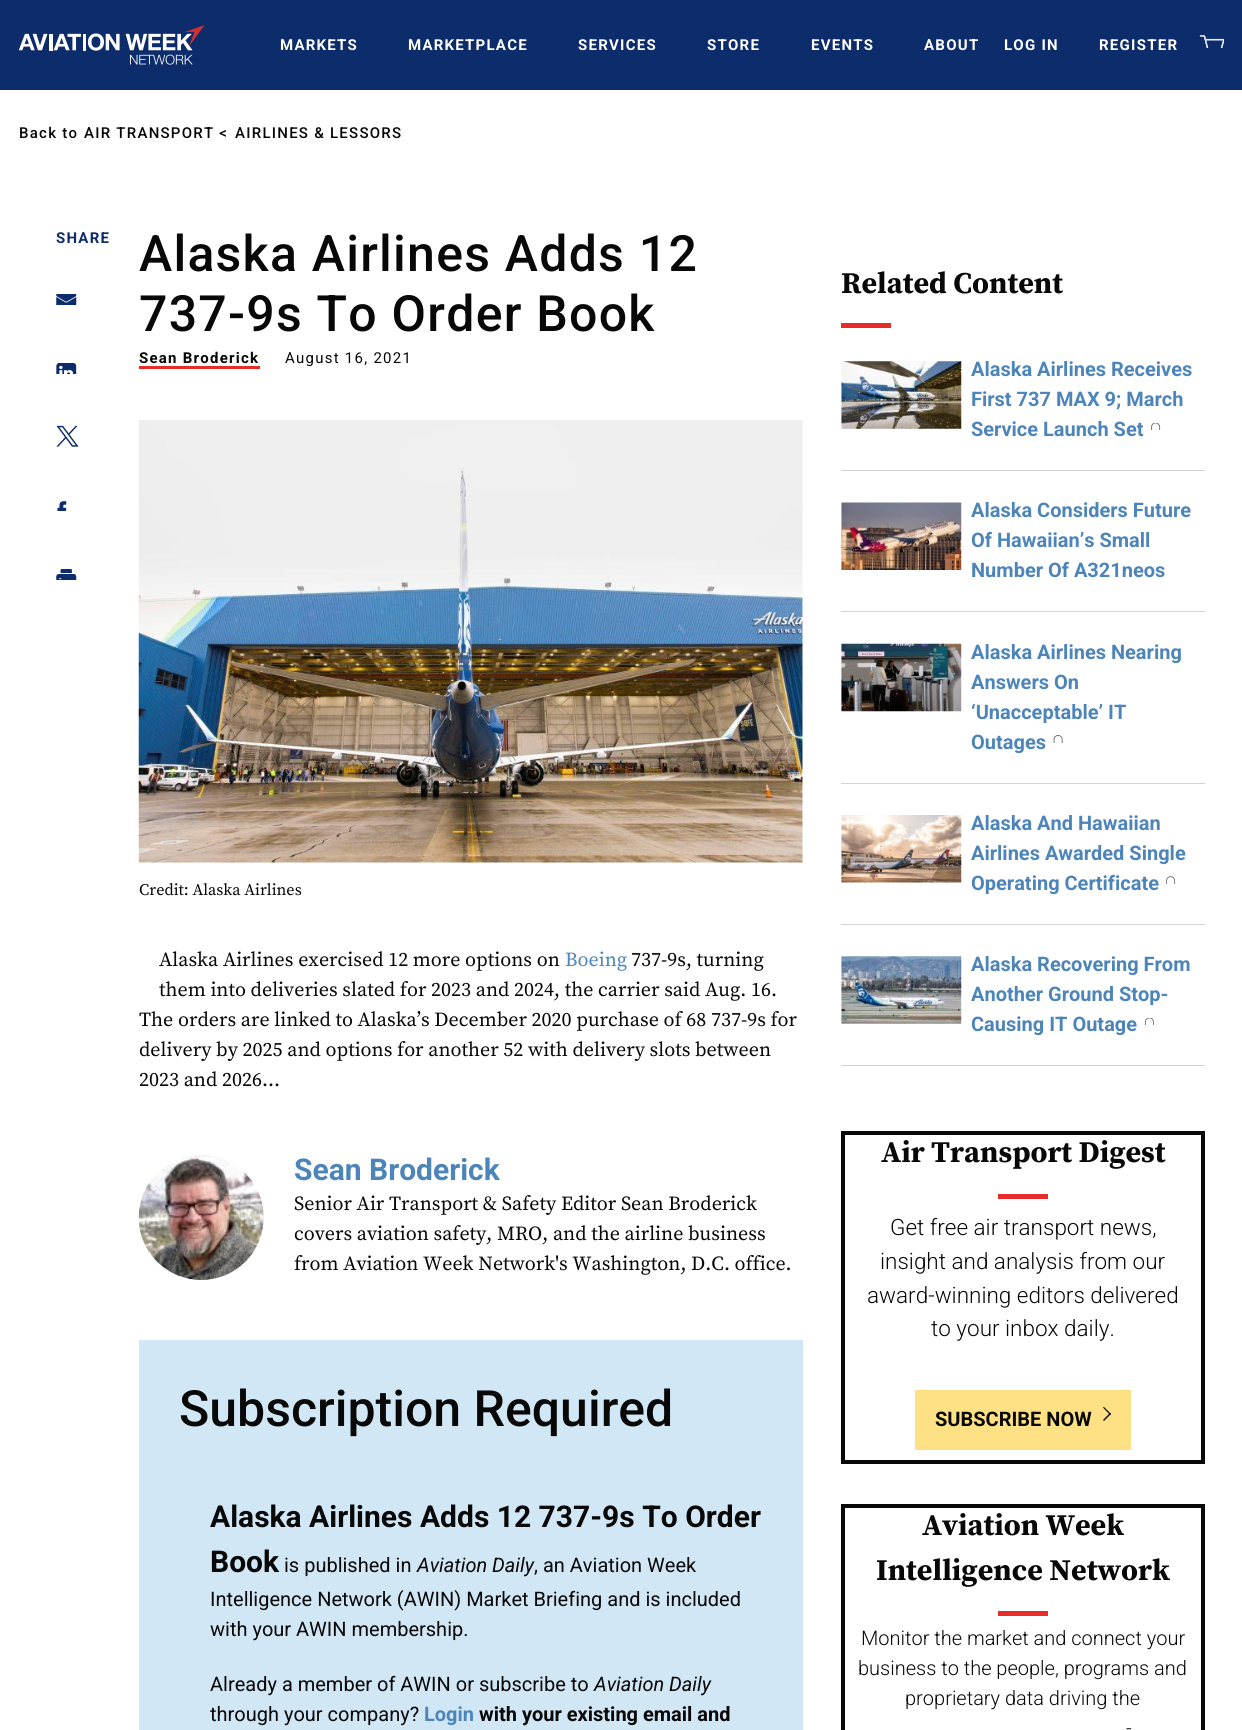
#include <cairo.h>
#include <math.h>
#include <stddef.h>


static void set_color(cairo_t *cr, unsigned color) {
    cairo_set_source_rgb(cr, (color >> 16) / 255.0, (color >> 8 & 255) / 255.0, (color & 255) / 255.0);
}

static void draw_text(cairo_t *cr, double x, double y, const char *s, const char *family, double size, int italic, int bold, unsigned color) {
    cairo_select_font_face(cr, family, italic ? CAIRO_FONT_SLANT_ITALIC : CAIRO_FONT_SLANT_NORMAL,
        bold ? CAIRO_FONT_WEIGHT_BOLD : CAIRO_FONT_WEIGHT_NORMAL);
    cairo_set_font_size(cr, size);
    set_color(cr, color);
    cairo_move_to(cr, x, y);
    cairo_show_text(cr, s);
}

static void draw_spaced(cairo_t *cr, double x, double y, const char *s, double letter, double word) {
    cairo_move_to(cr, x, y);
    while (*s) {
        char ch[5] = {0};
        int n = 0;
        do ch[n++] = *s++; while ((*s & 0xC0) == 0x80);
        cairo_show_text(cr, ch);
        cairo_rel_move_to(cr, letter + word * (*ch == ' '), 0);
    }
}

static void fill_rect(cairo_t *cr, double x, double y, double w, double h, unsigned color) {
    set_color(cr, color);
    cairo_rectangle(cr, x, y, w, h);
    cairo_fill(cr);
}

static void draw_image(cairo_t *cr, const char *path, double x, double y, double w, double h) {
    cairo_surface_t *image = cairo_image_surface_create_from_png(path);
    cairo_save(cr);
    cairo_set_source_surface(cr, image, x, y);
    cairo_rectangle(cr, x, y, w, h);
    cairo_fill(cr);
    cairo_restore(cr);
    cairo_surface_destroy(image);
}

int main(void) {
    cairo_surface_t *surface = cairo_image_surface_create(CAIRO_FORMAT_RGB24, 1242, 1730);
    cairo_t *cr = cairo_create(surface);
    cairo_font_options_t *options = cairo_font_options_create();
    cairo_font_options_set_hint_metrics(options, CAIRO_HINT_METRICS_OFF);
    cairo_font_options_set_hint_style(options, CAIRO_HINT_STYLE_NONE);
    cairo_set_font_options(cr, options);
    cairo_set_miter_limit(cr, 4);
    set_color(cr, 0xFFFFFF);
    cairo_paint(cr);
    fill_rect(cr, 0, 0, 1242, 90, 0x0D2C6B);
    draw_image(cr, "assets/img1.png", 19, 25, 186, 40);
    cairo_select_font_face(cr, "Roboto", CAIRO_FONT_SLANT_NORMAL, CAIRO_FONT_WEIGHT_BOLD);
    cairo_set_font_size(cr, 15);
    set_color(cr, 0xFFFFFF);
    draw_spaced(cr, 280, 50, "MARKETS", 1.25, 0);
    draw_spaced(cr, 408, 50, "MARKETPLACE", 1.25, 0);
    draw_spaced(cr, 578, 50, "SERVICES", 1.25, 0);
    draw_spaced(cr, 707, 50, "STORE", 1.25, 0);
    draw_spaced(cr, 811, 50, "EVENTS", 1.25, 0);
    draw_spaced(cr, 924, 50, "ABOUT", 1.25, 0);
    draw_spaced(cr, 1004, 50, "LOG IN", 1.25, 0);
    draw_spaced(cr, 1099, 50, "REGISTER", 1.25, 0);
    draw_image(cr, "assets/img2.png", 1199, 35, 25, 13);
    cairo_select_font_face(cr, "Roboto Medium", CAIRO_FONT_SLANT_NORMAL, CAIRO_FONT_WEIGHT_NORMAL);
    set_color(cr, 0x080808);
    draw_spaced(cr, 19, 138, "Back to", 1.25, 0);
    draw_spaced(cr, 84, 138, "AIR TRANSPORT <", 1.25, 0);
    draw_spaced(cr, 235, 138, "AIRLINES & LESSORS", 1.25, 0);
    cairo_select_font_face(cr, "Roboto", CAIRO_FONT_SLANT_NORMAL, CAIRO_FONT_WEIGHT_BOLD);
    set_color(cr, 0x0D2C6B);
    draw_spaced(cr, 56, 243, "SHARE", 1.25, 0);
    draw_image(cr, "assets/img3.png", 56, 294, 21, 11);
    draw_image(cr, "assets/img4.png", 56, 363, 21, 11);
    draw_image(cr, "assets/img5.png", 56, 425, 23, 22);
    draw_image(cr, "assets/img6.png", 57, 501, 10, 10);
    draw_image(cr, "assets/img7.png", 56, 569, 21, 11);
    cairo_select_font_face(cr, "Roboto Medium", CAIRO_FONT_SLANT_NORMAL, CAIRO_FONT_WEIGHT_NORMAL);
    cairo_set_font_size(cr, 50);
    set_color(cr, 0x080808);
    draw_spaced(cr, 139, 271, "Alaska Airlines Adds 12", 1.25, 0);
    draw_spaced(cr, 139, 331, "737-9s To Order Book", 1.25, 0);
    cairo_select_font_face(cr, "Roboto", CAIRO_FONT_SLANT_NORMAL, CAIRO_FONT_WEIGHT_BOLD);
    cairo_set_font_size(cr, 15);
    draw_spaced(cr, 139, 363, "Sean Broderick", 1.25, 0);
    fill_rect(cr, 139, 366, 121, 3, 0xE72C2A);
    cairo_select_font_face(cr, "Roboto", CAIRO_FONT_SLANT_NORMAL, CAIRO_FONT_WEIGHT_NORMAL);
    set_color(cr, 0x080808);
    draw_spaced(cr, 285, 363, "August 16, 2021", 1.25, 0);
    draw_image(cr, "assets/img8.png", 138, 420, 665, 443);
    draw_text(cr, 139, 895, "Credit: Alaska Airlines", "Source Serif Pro", 16.25, 0, 0, 0x080808);
    draw_text(cr, 159, 966, "Alaska Airlines exercised 12 more options on", "Source Serif Pro", 20, 0, 0, 0x080808);
    draw_text(cr, 565, 966, "Boeing", "Source Serif Pro", 20, 0, 0, 0x4D85BA);
    draw_text(cr, 631, 966, "737-9s, turning", "Source Serif Pro", 20, 0, 0, 0x080808);
    draw_text(cr, 159, 996, "them into deliveries slated for 2023 and 2024, the carrier said Aug. 16.", "Source Serif Pro", 20, 0, 0, 0x080808);
    draw_text(cr, 139, 1026, "The orders are linked to Alaska’s December 2020 purchase of 68 737-9s for", "Source Serif Pro", 20, 0, 0, 0x080808);
    draw_text(cr, 139, 1056, "delivery by 2025 and options for another 52 with delivery slots between", "Source Serif Pro", 20, 0, 0, 0x080808);
    draw_text(cr, 139, 1086, "2023 and 2026...", "Source Serif Pro", 20, 0, 0, 0x080808);
    draw_image(cr, "assets/img9.png", 138, 1155, 126, 125);
    draw_text(cr, 294, 1180, "Sean Broderick", "Roboto", 30, 0, 1, 0x4D85BA);
    draw_text(cr, 294, 1210, "Senior Air Transport & Safety Editor Sean Broderick", "Source Serif Pro", 20, 0, 0, 0x080808);
    draw_text(cr, 294, 1240, "covers aviation safety, MRO, and the airline business", "Source Serif Pro", 20, 0, 0, 0x080808);
    draw_text(cr, 294, 1270, "from Aviation Week Network's Washington, D.C. office.", "Source Serif Pro", 20, 0, 0, 0x080808);
    fill_rect(cr, 139, 1340, 664, 390, 0xD2E7F5);
    draw_text(cr, 179, 1426, "Subscription Required", "Roboto Medium", 50, 0, 0, 0x080808);
    draw_text(cr, 210, 1527, "Alaska Airlines Adds 12 737-9s To Order", "Roboto", 30, 0, 1, 0x080808);
    draw_text(cr, 210, 1572, "Book", "Roboto", 30, 0, 1, 0x080808);
    draw_text(cr, 284, 1572, "is published in", "Roboto", 20, 0, 0, 0x080808);
    draw_text(cr, 417, 1572, "Aviation Daily", "Roboto", 20, 1, 0, 0x080808);
    draw_text(cr, 534, 1572, ", an Aviation Week", "Roboto", 20, 0, 0, 0x080808);
    draw_text(cr, 210, 1606, "Intelligence Network (AWIN) Market Briefing and is included", "Roboto", 20, 0, 0, 0x080808);
    draw_text(cr, 210, 1636, "with your AWIN membership.", "Roboto", 20, 0, 0, 0x080808);
    draw_text(cr, 210, 1691, "Already a member of AWIN or subscribe to", "Roboto", 20, 0, 0, 0x080808);
    draw_text(cr, 594, 1691, "Aviation Daily", "Roboto", 20, 1, 0, 0x080808);
    draw_text(cr, 210, 1721, "through your company?", "Roboto", 20, 0, 0, 0x080808);
    draw_text(cr, 424, 1721, "Login", "Roboto", 20, 0, 1, 0x4D85BA);
    draw_text(cr, 479, 1721, "with your existing email and", "Roboto", 20, 0, 1, 0x080808);
    draw_text(cr, 841, 293, "Related Content", "Source Serif Pro", 30, 0, 1, 0x080808);
    fill_rect(cr, 841, 323, 50, 5, 0xE72C2A);
    fill_rect(cr, 841, 470, 364, 1, 0xD1D3D4);
    draw_image(cr, "assets/img10.png", 841, 361, 121, 68);
    draw_text(cr, 971, 376, "Alaska Airlines Receives", "Roboto", 20, 0, 1, 0x4D85BA);
    draw_text(cr, 971, 406, "First 737 MAX 9; March", "Roboto", 20, 0, 1, 0x4D85BA);
    draw_text(cr, 971, 436, "Service Launch Set", "Roboto", 20, 0, 1, 0x4D85BA);
    draw_image(cr, "assets/img11.png", 1151, 423, 10, 7);
    fill_rect(cr, 841, 611, 364, 1, 0xD1D3D4);
    draw_image(cr, "assets/img12.png", 841, 502, 121, 68);
    draw_text(cr, 971, 517, "Alaska Considers Future", "Roboto", 20, 0, 1, 0x4D85BA);
    draw_text(cr, 971, 547, "Of Hawaiian’s Small", "Roboto", 20, 0, 1, 0x4D85BA);
    draw_text(cr, 971, 577, "Number Of A321neos", "Roboto", 20, 0, 1, 0x4D85BA);
    fill_rect(cr, 841, 783, 364, 1, 0xD1D3D4);
    draw_image(cr, "assets/img13.png", 841, 643, 121, 69);
    draw_text(cr, 971, 659, "Alaska Airlines Nearing", "Roboto", 20, 0, 1, 0x4D85BA);
    draw_text(cr, 971, 689, "Answers On", "Roboto", 20, 0, 1, 0x4D85BA);
    draw_text(cr, 971, 719, "‘Unacceptable’ IT", "Roboto", 20, 0, 1, 0x4D85BA);
    draw_text(cr, 971, 749, "Outages", "Roboto", 20, 0, 1, 0x4D85BA);
    draw_image(cr, "assets/img14.png", 1053, 735, 10, 8);
    fill_rect(cr, 841, 924, 364, 1, 0xD1D3D4);
    draw_image(cr, "assets/img15.png", 841, 815, 121, 68);
    draw_text(cr, 971, 830, "Alaska And Hawaiian", "Roboto", 20, 0, 1, 0x4D85BA);
    draw_text(cr, 971, 860, "Airlines Awarded Single", "Roboto", 20, 0, 1, 0x4D85BA);
    draw_text(cr, 971, 890, "Operating Certificate", "Roboto", 20, 0, 1, 0x4D85BA);
    draw_image(cr, "assets/img16.png", 1166, 876, 10, 8);
    fill_rect(cr, 841, 1065, 364, 1, 0xD1D3D4);
    draw_image(cr, "assets/img17.png", 841, 956, 121, 68);
    draw_text(cr, 971, 971, "Alaska Recovering From", "Roboto", 20, 0, 1, 0x4D85BA);
    draw_text(cr, 971, 1001, "Another Ground Stop-", "Roboto", 20, 0, 1, 0x4D85BA);
    draw_text(cr, 971, 1031, "Causing IT Outage", "Roboto", 20, 0, 1, 0x4D85BA);
    draw_image(cr, "assets/img18.png", 1144, 1018, 10, 7);
    cairo_rectangle(cr, 843, 1133, 360, 329);
    set_color(cr, 0x080808);
    cairo_set_line_width(cr, 4);
    cairo_stroke(cr);
    draw_text(cr, 881, 1162, "Air Transport Digest", "Source Serif Pro", 30, 0, 1, 0x080808);
    fill_rect(cr, 998, 1194, 50, 5, 0xE72C2A);
    draw_text(cr, 890, 1235, "Get free air transport news,", "Roboto Light", 22.5, 0, 0, 0x080808);
    draw_text(cr, 880, 1269, "insight and analysis from our", "Roboto Light", 22.5, 0, 0, 0x080808);
    draw_text(cr, 867, 1303, "award-winning editors delivered", "Roboto Light", 22.5, 0, 0, 0x080808);
    draw_text(cr, 931, 1336, "to your inbox daily.", "Roboto Light", 22.5, 0, 0, 0x080808);
    fill_rect(cr, 915, 1390, 216, 60, 0xFFE185);
    draw_text(cr, 935, 1426, "SUBSCRIBE NOW", "Roboto", 20, 0, 1, 0x080808);
    cairo_new_path(cr);
    cairo_move_to(cr, 1104, 1407);
    cairo_line_to(cr, 1111, 1414);
    cairo_line_to(cr, 1110, 1415);
    cairo_line_to(cr, 1103, 1407.5);
    cairo_close_path(cr);
    cairo_fill(cr);
    cairo_new_path(cr);
    cairo_move_to(cr, 1110, 1413);
    cairo_line_to(cr, 1111, 1414);
    cairo_line_to(cr, 1104, 1421);
    cairo_line_to(cr, 1103, 1420);
    cairo_close_path(cr);
    cairo_fill(cr);
    cairo_rectangle(cr, 843, 1506, 360, 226);
    cairo_stroke(cr);
    draw_text(cr, 922, 1535, "Aviation Week", "Source Serif Pro", 30, 0, 1, 0x080808);
    draw_text(cr, 876, 1580, "Intelligence Network", "Source Serif Pro", 30, 0, 1, 0x080808);
    fill_rect(cr, 998, 1611, 50, 5, 0xE72C2A);
    draw_text(cr, 861, 1645, "Monitor the market and connect your", "Roboto Light", 20, 0, 0, 0x080808);
    draw_text(cr, 858, 1675, "business to the people, programs and", "Roboto Light", 20, 0, 0, 0x080808);
    draw_text(cr, 905, 1705, "proprietary data driving the", "Roboto Light", 20, 0, 0, 0x080808);
    draw_text(cr, 1126, 1735, "-", "Roboto Light", 20, 0, 0, 0x080808);
    cairo_surface_write_to_png(surface, "output.png");
    cairo_font_options_destroy(options);
    cairo_destroy(cr);
    cairo_surface_destroy(surface);
    return 0;
}
